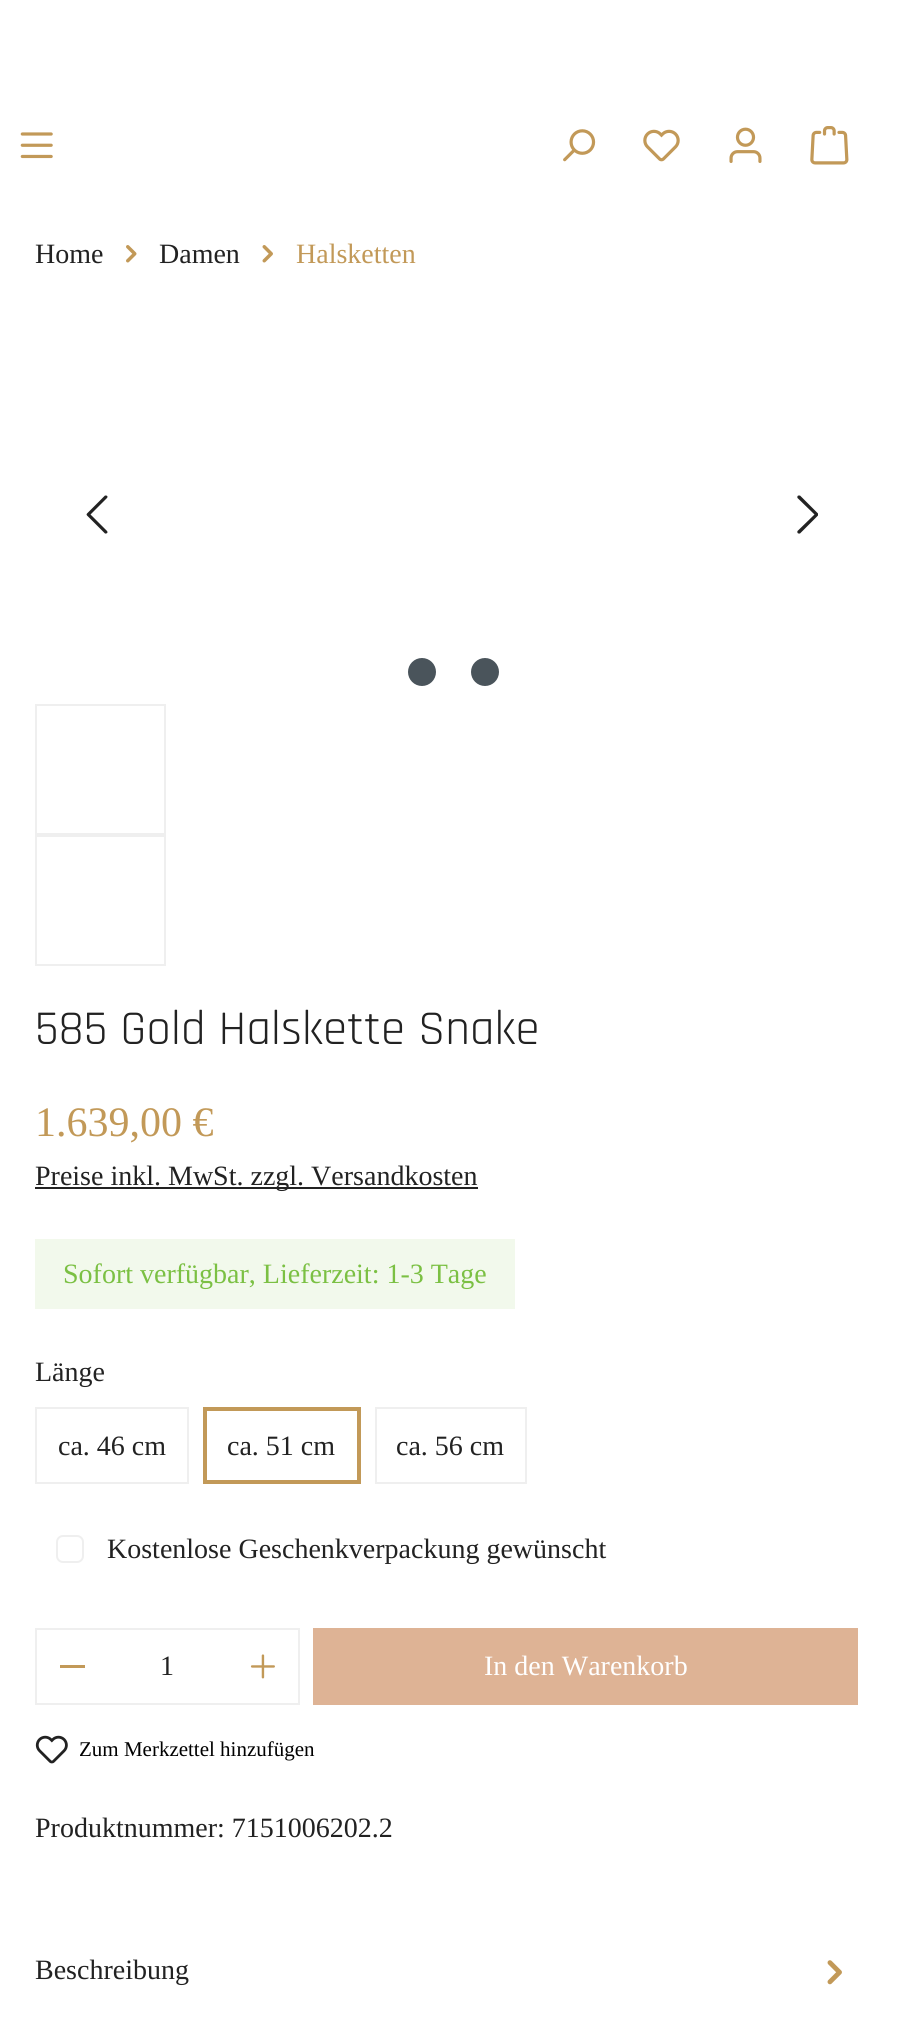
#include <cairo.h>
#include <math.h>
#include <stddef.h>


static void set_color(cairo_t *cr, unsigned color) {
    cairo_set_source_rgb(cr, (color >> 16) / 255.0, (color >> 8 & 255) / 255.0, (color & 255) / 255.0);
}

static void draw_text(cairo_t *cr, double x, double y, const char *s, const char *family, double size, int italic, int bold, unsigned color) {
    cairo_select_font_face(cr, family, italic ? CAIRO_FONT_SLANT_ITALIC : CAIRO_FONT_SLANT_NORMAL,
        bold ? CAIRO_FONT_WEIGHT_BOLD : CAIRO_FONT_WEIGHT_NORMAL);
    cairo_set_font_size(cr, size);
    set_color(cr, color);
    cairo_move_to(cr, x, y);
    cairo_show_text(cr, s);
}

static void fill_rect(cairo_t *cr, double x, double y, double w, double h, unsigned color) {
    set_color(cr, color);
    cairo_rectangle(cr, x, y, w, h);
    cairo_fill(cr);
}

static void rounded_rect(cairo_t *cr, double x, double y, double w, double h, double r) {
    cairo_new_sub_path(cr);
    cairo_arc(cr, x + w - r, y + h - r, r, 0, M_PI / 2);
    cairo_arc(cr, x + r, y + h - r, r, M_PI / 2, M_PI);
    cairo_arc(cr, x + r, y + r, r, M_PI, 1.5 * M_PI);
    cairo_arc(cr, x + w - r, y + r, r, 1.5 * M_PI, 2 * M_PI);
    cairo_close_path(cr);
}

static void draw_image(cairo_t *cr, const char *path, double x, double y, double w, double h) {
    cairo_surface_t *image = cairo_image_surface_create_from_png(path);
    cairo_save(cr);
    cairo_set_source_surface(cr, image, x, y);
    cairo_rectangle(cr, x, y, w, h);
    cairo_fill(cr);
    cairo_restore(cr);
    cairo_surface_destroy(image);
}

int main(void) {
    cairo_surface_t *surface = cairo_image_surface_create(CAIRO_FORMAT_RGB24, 905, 2022);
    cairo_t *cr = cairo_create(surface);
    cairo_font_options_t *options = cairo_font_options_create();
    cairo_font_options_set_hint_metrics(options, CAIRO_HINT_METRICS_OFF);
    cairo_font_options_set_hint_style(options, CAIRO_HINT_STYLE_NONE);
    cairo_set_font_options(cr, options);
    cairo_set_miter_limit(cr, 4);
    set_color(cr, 0xFFFFFF);
    cairo_paint(cr);
    draw_image(cr, "assets/img1.png", 20, 132, 33, 27);
    draw_image(cr, "assets/img2.png", 563, 129, 33, 33);
    draw_image(cr, "assets/img3.png", 643, 129, 37, 33);
    draw_image(cr, "assets/img4.png", 729, 127, 33, 36);
    draw_image(cr, "assets/img5.png", 810, 126, 39, 39);
    draw_text(cr, 35, 263, "Home", "Liberation Serif", 28, 0, 0, 0x222222);
    draw_image(cr, "assets/img6.png", 126, 245, 11, 18);
    draw_text(cr, 159, 263, "Damen", "Liberation Serif", 28, 0, 0, 0x222222);
    draw_image(cr, "assets/img7.png", 262, 245, 11, 18);
    draw_text(cr, 296, 263, "Halsketten", "Liberation Serif", 28, 0, 0, 0xC29958);
    set_color(cr, 0x222222);
    cairo_set_fill_rule(cr, CAIRO_FILL_RULE_EVEN_ODD);
    cairo_new_path(cr);
    cairo_move_to(cr, 90.5, 514.5);
    cairo_line_to(cr, 107, 531);
    cairo_curve_to(cr, 108, 532, 107.5, 533.5, 106, 533.5);
    cairo_line_to(cr, 105, 533.5);
    cairo_line_to(cr, 87, 515.5);
    cairo_line_to(cr, 86.5, 514.5);
    cairo_line_to(cr, 87, 513.5);
    cairo_line_to(cr, 105, 495.5);
    cairo_line_to(cr, 106, 495.5);
    cairo_curve_to(cr, 107.5, 495.5, 108, 497, 107, 498);
    cairo_close_path(cr);
    cairo_fill(cr);
    cairo_new_path(cr);
    cairo_move_to(cr, 814.5, 514.5);
    cairo_line_to(cr, 797.5, 531);
    cairo_curve_to(cr, 797, 532, 797.5, 533.5, 798.5, 533.5);
    cairo_line_to(cr, 800, 533.5);
    cairo_line_to(cr, 818, 515.5);
    cairo_line_to(cr, 818, 514.5);
    cairo_line_to(cr, 818, 513.5);
    cairo_line_to(cr, 800, 495.5);
    cairo_line_to(cr, 798.5, 495.5);
    cairo_curve_to(cr, 797.5, 495.5, 797, 497, 797.5, 498);
    cairo_close_path(cr);
    cairo_fill(cr);
    set_color(cr, 0x4A545B);
    cairo_arc(cr, 422, 672, 14, 0, 2 * M_PI);
    cairo_fill(cr);
    cairo_arc(cr, 485, 672, 14, 0, 2 * M_PI);
    cairo_fill(cr);
    cairo_rectangle(cr, 36, 705, 129, 129);
    set_color(cr, 0xEFEFEF);
    cairo_stroke(cr);
    cairo_rectangle(cr, 36, 836, 129, 129);
    cairo_stroke(cr);
    draw_text(cr, 35, 1044, "585 Gold Halskette Snake", "Rajdhani", 48.75, 0, 0, 0x222222);
    draw_text(cr, 35, 1136, "1.639,00 €", "Liberation Serif", 42, 0, 0, 0xC29958);
    fill_rect(cr, 35, 1187, 443, 2, 0x222222);
    draw_text(cr, 35, 1185, "Preise inkl. MwSt. zzgl. Versandkosten", "Liberation Serif", 28, 0, 0, 0x222222);
    fill_rect(cr, 35, 1239, 480, 70, 0xF2F9EC);
    draw_text(cr, 63, 1283, "Sofort verfügbar, Lieferzeit: 1-3 Tage", "Liberation Serif", 28, 0, 0, 0x7BC043);
    draw_text(cr, 35, 1381, "Länge", "Liberation Serif", 28, 0, 0, 0x222222);
    cairo_rectangle(cr, 36, 1408, 152, 75);
    set_color(cr, 0xEFEFEF);
    cairo_stroke(cr);
    draw_text(cr, 58, 1455, "ca. 46 cm", "Liberation Serif", 28, 0, 0, 0x222222);
    cairo_rectangle(cr, 205, 1409, 154, 73);
    set_color(cr, 0xC29958);
    cairo_set_line_width(cr, 4);
    cairo_stroke(cr);
    draw_text(cr, 227, 1455, "ca. 51 cm", "Liberation Serif", 28, 0, 0, 0x222222);
    cairo_rectangle(cr, 376, 1408, 150, 75);
    set_color(cr, 0xEFEFEF);
    cairo_set_line_width(cr, 2);
    cairo_stroke(cr);
    draw_text(cr, 396, 1455, "ca. 56 cm", "Liberation Serif", 28, 0, 0, 0x222222);
    rounded_rect(cr, 57, 1536, 26, 26, 6);
    set_color(cr, 0xEFEFEF);
    cairo_stroke(cr);
    draw_text(cr, 107, 1558, "Kostenlose Geschenkverpackung gewünscht", "Liberation Serif", 28, 0, 0, 0x222222);
    fill_rect(cr, 35, 1628, 264, 2, 0xEFEFEF);
    fill_rect(cr, 35, 1703, 194, 2, 0xEFEFEF);
    fill_rect(cr, 35, 1628, 2, 77, 0xEFEFEF);
    fill_rect(cr, 60, 1665, 25, 3, 0xC29958);
    draw_text(cr, 160, 1675, "1", "Liberation Serif", 28, 0, 0, 0x222222);
    fill_rect(cr, 298, 1628, 2, 77, 0xEFEFEF);
    fill_rect(cr, 228, 1703, 71, 2, 0xEFEFEF);
    draw_image(cr, "assets/img8.png", 250, 1654, 25, 25);
    fill_rect(cr, 313, 1628, 545, 77, 0xDEB395);
    draw_text(cr, 484, 1675, "In den Warenkorb", "Liberation Serif", 28, 0, 0, 0xFFFFFF);
    draw_image(cr, "assets/img9.png", 35, 1735, 33, 29);
    draw_text(cr, 79, 1756, "Zum Merkzettel hinzufügen", "Liberation Serif", 21, 0, 0, 0x000000);
    draw_text(cr, 35, 1837, "Produktnummer: 7151006202.2", "Liberation Serif", 28, 0, 0, 0x222222);
    draw_text(cr, 35, 1979, "Beschreibung", "Liberation Serif", 28, 0, 0, 0x222222);
    draw_image(cr, "assets/img10.png", 827, 1960, 15, 25);
    cairo_surface_write_to_png(surface, "output.png");
    cairo_font_options_destroy(options);
    cairo_destroy(cr);
    cairo_surface_destroy(surface);
    return 0;
}
